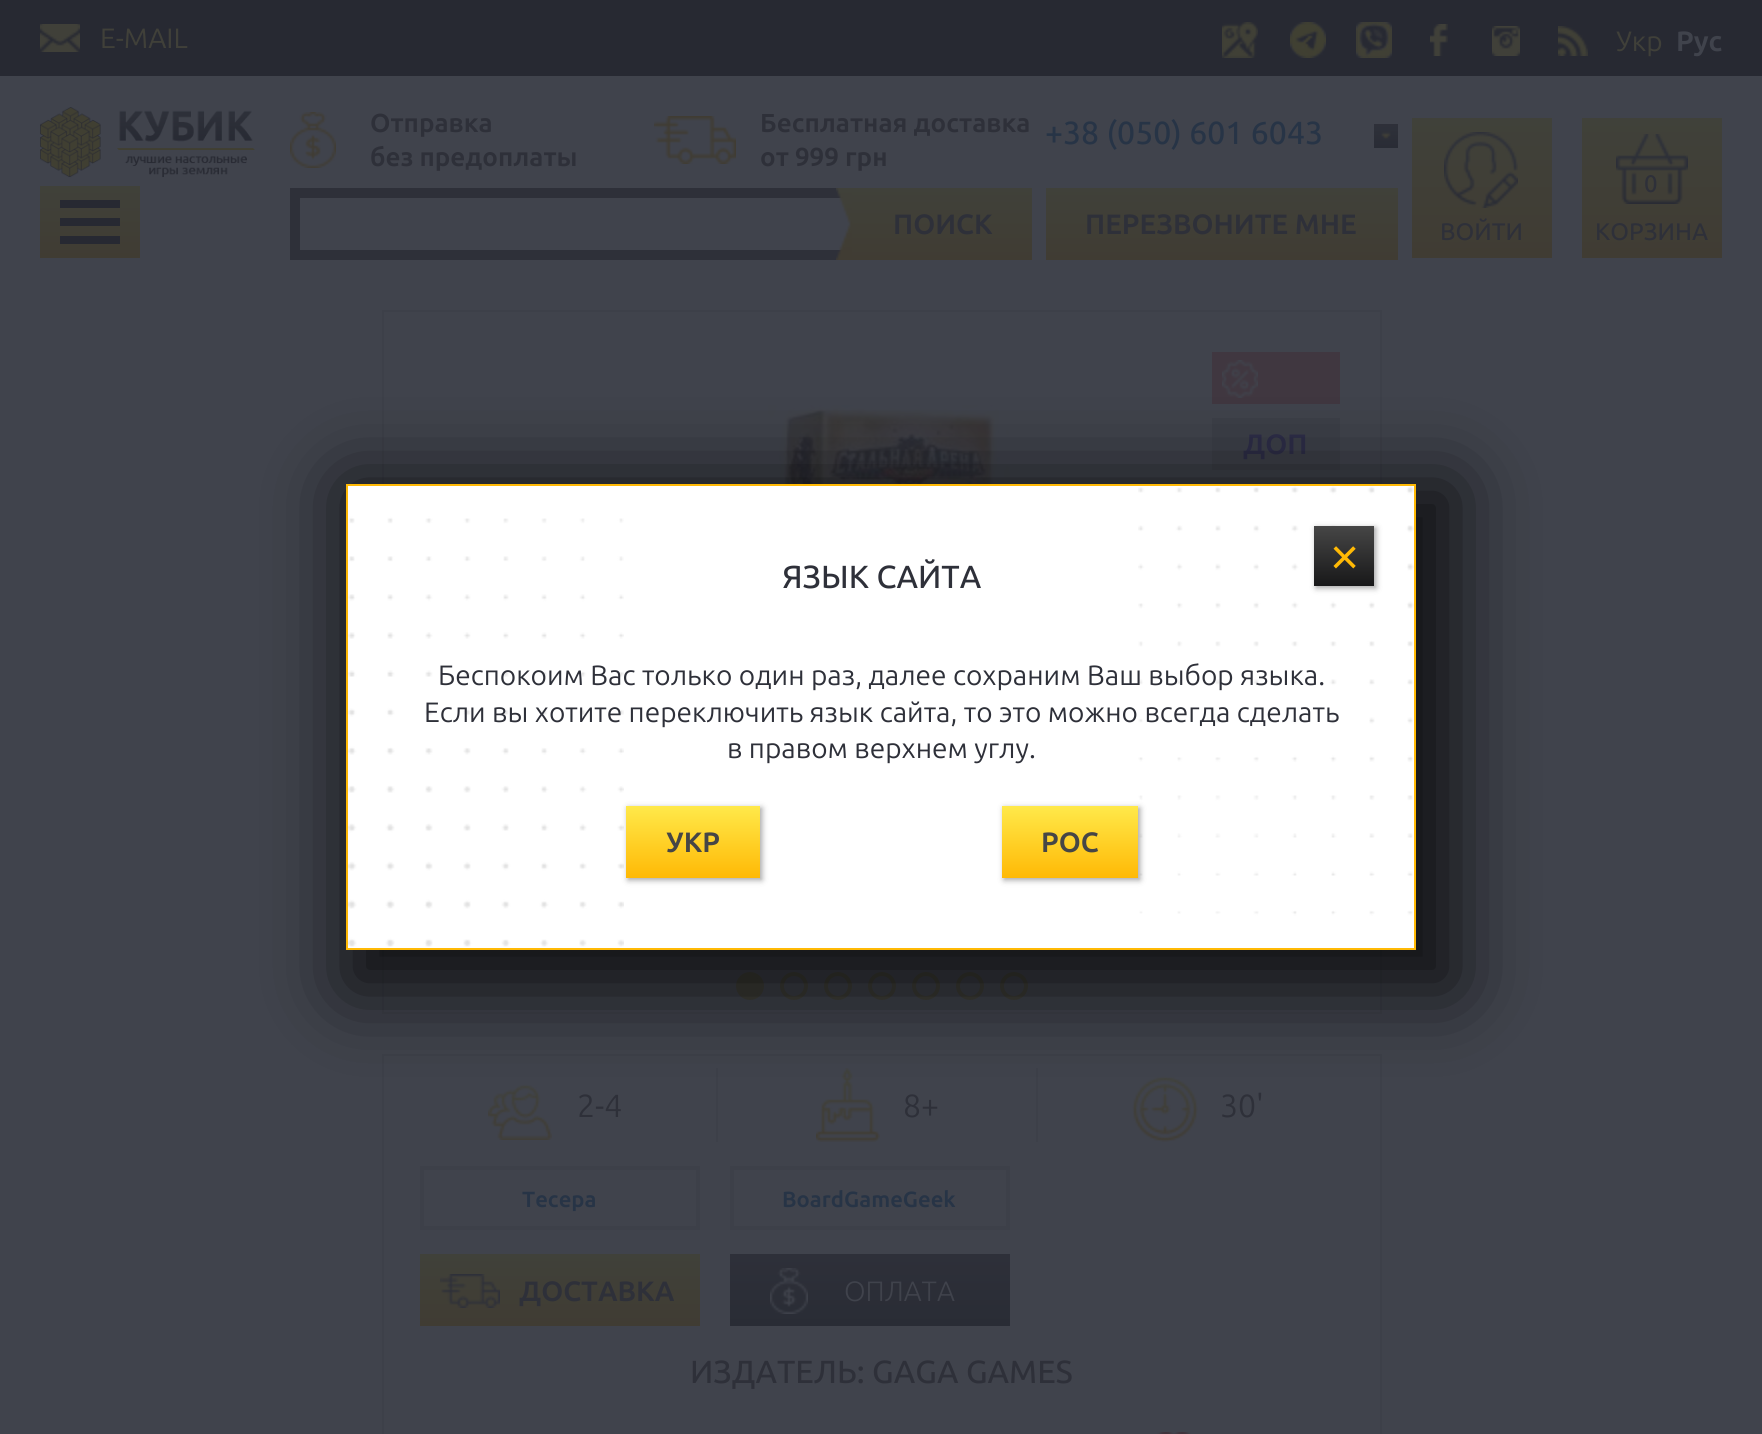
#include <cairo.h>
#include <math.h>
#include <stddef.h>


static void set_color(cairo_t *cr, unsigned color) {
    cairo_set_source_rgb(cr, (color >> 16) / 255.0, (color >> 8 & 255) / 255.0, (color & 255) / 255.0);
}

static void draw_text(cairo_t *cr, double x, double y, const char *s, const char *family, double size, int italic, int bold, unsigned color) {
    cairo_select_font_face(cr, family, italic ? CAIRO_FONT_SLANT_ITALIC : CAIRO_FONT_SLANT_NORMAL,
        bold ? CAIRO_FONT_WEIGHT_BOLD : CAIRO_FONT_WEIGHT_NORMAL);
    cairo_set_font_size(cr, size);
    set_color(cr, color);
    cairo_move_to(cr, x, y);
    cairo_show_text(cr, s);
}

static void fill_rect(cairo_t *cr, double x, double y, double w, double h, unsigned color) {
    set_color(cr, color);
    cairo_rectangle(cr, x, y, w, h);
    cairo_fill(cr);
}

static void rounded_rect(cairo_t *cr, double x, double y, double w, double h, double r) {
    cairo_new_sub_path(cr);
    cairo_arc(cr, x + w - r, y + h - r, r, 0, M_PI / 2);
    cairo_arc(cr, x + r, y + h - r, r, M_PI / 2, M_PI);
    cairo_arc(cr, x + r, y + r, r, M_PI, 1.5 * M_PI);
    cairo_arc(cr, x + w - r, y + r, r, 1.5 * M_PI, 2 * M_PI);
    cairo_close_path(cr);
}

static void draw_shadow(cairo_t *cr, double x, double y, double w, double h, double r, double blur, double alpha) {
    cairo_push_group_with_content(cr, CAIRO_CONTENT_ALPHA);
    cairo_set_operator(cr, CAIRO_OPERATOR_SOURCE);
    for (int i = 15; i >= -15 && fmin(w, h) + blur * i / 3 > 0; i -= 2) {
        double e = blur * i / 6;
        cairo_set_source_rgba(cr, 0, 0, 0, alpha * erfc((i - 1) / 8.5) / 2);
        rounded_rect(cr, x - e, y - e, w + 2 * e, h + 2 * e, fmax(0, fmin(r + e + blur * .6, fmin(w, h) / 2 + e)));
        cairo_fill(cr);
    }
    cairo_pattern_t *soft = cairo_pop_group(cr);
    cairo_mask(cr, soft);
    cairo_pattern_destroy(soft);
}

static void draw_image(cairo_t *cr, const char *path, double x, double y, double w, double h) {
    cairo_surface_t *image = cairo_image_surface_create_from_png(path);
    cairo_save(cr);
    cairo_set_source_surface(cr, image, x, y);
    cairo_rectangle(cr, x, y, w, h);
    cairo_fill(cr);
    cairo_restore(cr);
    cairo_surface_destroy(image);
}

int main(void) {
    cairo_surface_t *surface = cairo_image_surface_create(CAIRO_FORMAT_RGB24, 1762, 1434);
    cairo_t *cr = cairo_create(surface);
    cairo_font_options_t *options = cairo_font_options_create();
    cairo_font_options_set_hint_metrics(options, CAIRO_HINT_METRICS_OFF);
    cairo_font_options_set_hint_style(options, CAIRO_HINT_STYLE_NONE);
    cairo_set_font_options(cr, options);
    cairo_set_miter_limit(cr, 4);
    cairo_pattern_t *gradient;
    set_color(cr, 0x40434C);
    cairo_paint(cr);
    fill_rect(cr, 0, 0, 1762, 76, 0x272932);
    draw_image(cr, "assets/img1.png", 40, 24, 40, 28);
    draw_text(cr, 100, 48, "E-MAIL", "Ubuntu", 28, 0, 0, 0x404039);
    draw_image(cr, "assets/img2.png", 1222, 22, 36, 36);
    draw_image(cr, "assets/img3.png", 1290, 22, 36, 36);
    draw_image(cr, "assets/img4.png", 1356, 22, 36, 36);
    draw_image(cr, "assets/img5.png", 1430, 24, 18, 32);
    draw_image(cr, "assets/img6.png", 1492, 26, 28, 30);
    draw_image(cr, "assets/img7.png", 1558, 26, 30, 30);
    draw_text(cr, 1616, 51, "Укр", "Ubuntu", 28, 0, 0, 0x404039);
    draw_text(cr, 1676, 51, "Рус", "Ubuntu", 28, 0, 1, 0x40434C);
    draw_image(cr, "assets/img8.png", 40, 107, 215, 71);
    gradient = cairo_pattern_create_linear(90, 258, 90, 186);
    cairo_pattern_add_color_stop_rgba(gradient, 0, 0.251, 0.235, 0.2, 1);
    cairo_pattern_add_color_stop_rgba(gradient, 1, 0.251, 0.255, 0.227, 1);
    cairo_set_source(cr, gradient);
    cairo_pattern_destroy(gradient);
    cairo_rectangle(cr, 40, 186, 100, 72);
    cairo_fill(cr);
    fill_rect(cr, 60, 218, 60, 8, 0x272932);
    fill_rect(cr, 60, 200, 60, 8, 0x272932);
    fill_rect(cr, 60, 236, 60, 8, 0x272932);
    draw_image(cr, "assets/img9.png", 290, 112, 46, 56);
    draw_text(cr, 370, 132, "Отправка", "Ubuntu", 26, 0, 1, 0x2E3039);
    draw_text(cr, 370, 166, "без предоплаты", "Ubuntu", 26, 0, 1, 0x2E3039);
    draw_image(cr, "assets/img10.png", 654, 116, 82, 48);
    draw_text(cr, 760, 132, "Бесплатная доставка", "Ubuntu", 26, 0, 1, 0x2E3039);
    draw_text(cr, 760, 166, "от 999 грн", "Ubuntu", 26, 0, 1, 0x2E3039);
    cairo_rectangle(cr, 295, 193, 730, 62);
    cairo_set_line_width(cr, 10);
    cairo_stroke(cr);
    gradient = cairo_pattern_create_linear(942, 260, 942, 188);
    cairo_pattern_add_color_stop_rgba(gradient, 0, 0.251, 0.235, 0.2, 1);
    cairo_pattern_add_color_stop_rgba(gradient, 1, 0.251, 0.255, 0.227, 1);
    cairo_set_source(cr, gradient);
    cairo_pattern_destroy(gradient);
    cairo_rectangle(cr, 852, 188, 180, 72);
    cairo_fill(cr);
    draw_image(cr, "assets/img11.png", 836, 188, 16, 72);
    draw_text(cr, 893, 234, "ПОИСК", "Ubuntu", 28, 0, 1, 0x2E3039);
    draw_image(cr, "assets/img12.png", 1374, 124, 24, 24);
    draw_text(cr, 1045, 144, "+38 (050) 601 6043", "Ubuntu Medium", 32, 0, 0, 0x273446);
    gradient = cairo_pattern_create_linear(1222, 260, 1222, 188);
    cairo_pattern_add_color_stop_rgba(gradient, 0, 0.251, 0.235, 0.2, 1);
    cairo_pattern_add_color_stop_rgba(gradient, 1, 0.251, 0.255, 0.227, 1);
    cairo_set_source(cr, gradient);
    cairo_pattern_destroy(gradient);
    cairo_rectangle(cr, 1046, 188, 352, 72);
    cairo_fill(cr);
    draw_text(cr, 1085, 234, "ПЕРЕЗВОНИТЕ МНЕ", "Ubuntu", 28, 0, 1, 0x2E3039);
    gradient = cairo_pattern_create_linear(1482, 258, 1482, 118);
    cairo_pattern_add_color_stop_rgba(gradient, 0, 0.251, 0.235, 0.2, 1);
    cairo_pattern_add_color_stop_rgba(gradient, 1, 0.251, 0.255, 0.227, 1);
    cairo_set_source(cr, gradient);
    cairo_pattern_destroy(gradient);
    cairo_rectangle(cr, 1412, 118, 140, 140);
    cairo_fill(cr);
    draw_image(cr, "assets/img13.png", 1444, 132, 74, 76);
    draw_text(cr, 1440, 240, "ВОЙТИ", "Ubuntu Medium", 24, 0, 0, 0x2E3039);
    gradient = cairo_pattern_create_linear(1652, 258, 1652, 118);
    cairo_pattern_add_color_stop_rgba(gradient, 0, 0.251, 0.235, 0.2, 1);
    cairo_pattern_add_color_stop_rgba(gradient, 1, 0.251, 0.255, 0.227, 1);
    cairo_set_source(cr, gradient);
    cairo_pattern_destroy(gradient);
    cairo_rectangle(cr, 1582, 118, 140, 140);
    cairo_fill(cr);
    draw_text(cr, 1644, 192, "0", "Ubuntu Medium", 24, 0, 0, 0x2E3039);
    draw_image(cr, "assets/img14.png", 1616, 134, 72, 70);
    draw_text(cr, 1595, 240, "КОРЗИНА", "Ubuntu Medium", 24, 0, 0, 0x2E3039);
    cairo_rectangle(cr, 383, 311, 998, 702);
    set_color(cr, 0x3D4049);
    cairo_set_line_width(cr, 2);
    cairo_stroke(cr);
    draw_image(cr, "assets/img15.png", 762, 405, 255, 79);
    set_color(cr, 0x404039);
    cairo_arc(cr, 750, 986, 12, 0, 2 * M_PI);
    cairo_fill_preserve(cr);
    cairo_set_line_width(cr, 4);
    cairo_stroke(cr);
    cairo_arc(cr, 794, 986, 12, 0, 2 * M_PI);
    cairo_stroke(cr);
    cairo_arc(cr, 838, 986, 12, 0, 2 * M_PI);
    cairo_stroke(cr);
    cairo_arc(cr, 882, 986, 12, 0, 2 * M_PI);
    cairo_stroke(cr);
    cairo_arc(cr, 926, 986, 12, 0, 2 * M_PI);
    cairo_stroke(cr);
    cairo_arc(cr, 970, 986, 12, 0, 2 * M_PI);
    cairo_stroke(cr);
    cairo_arc(cr, 1014, 986, 12, 0, 2 * M_PI);
    cairo_stroke(cr);
    fill_rect(cr, 1212, 352, 128, 52, 0x403740);
    draw_image(cr, "assets/img16.png", 1222, 360, 36, 38);
    fill_rect(cr, 1212, 418, 128, 52, 0x3C3F48);
    draw_text(cr, 1243, 454, "ДОП", "Ubuntu", 28, 0, 1, 0x2D2D48);
    cairo_rectangle(cr, 383, 1055, 998, 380);
    set_color(cr, 0x3D4049);
    cairo_set_line_width(cr, 2);
    cairo_stroke(cr);
    draw_image(cr, "assets/img17.png", 488, 1084, 64, 56);
    draw_text(cr, 577, 1117, "2-4", "Ubuntu", 32, 0, 0, 0x2E3039);
    fill_rect(cr, 716, 1068, 2, 74, 0x3D4049);
    draw_image(cr, "assets/img18.png", 816, 1068, 64, 74);
    draw_text(cr, 903, 1117, "8+", "Ubuntu", 32, 0, 0, 0x2E3039);
    fill_rect(cr, 1036, 1068, 2, 74, 0x3D4049);
    draw_image(cr, "assets/img19.png", 1132, 1076, 66, 66);
    draw_text(cr, 1220, 1117, "30'", "Ubuntu", 32, 0, 0, 0x2E3039);
    cairo_rectangle(cr, 422, 1168, 276, 60);
    set_color(cr, 0x3D4049);
    cairo_set_line_width(cr, 4);
    cairo_stroke(cr);
    draw_text(cr, 522, 1207, "Тесера", "Ubuntu", 22, 0, 1, 0x273446);
    cairo_rectangle(cr, 732, 1168, 276, 60);
    set_color(cr, 0x3D4049);
    cairo_stroke(cr);
    draw_text(cr, 782, 1207, "BoardGameGeek", "Ubuntu", 22, 0, 1, 0x273446);
    gradient = cairo_pattern_create_linear(560, 1326, 560, 1254);
    cairo_pattern_add_color_stop_rgba(gradient, 0, 0.251, 0.235, 0.2, 1);
    cairo_pattern_add_color_stop_rgba(gradient, 1, 0.251, 0.255, 0.227, 1);
    cairo_set_source(cr, gradient);
    cairo_pattern_destroy(gradient);
    cairo_rectangle(cr, 420, 1254, 280, 72);
    cairo_fill(cr);
    draw_image(cr, "assets/img20.png", 440, 1274, 60, 34);
    draw_text(cr, 519, 1301, "ДОСТАВКА", "Ubuntu", 28, 0, 1, 0x2E3039);
    gradient = cairo_pattern_create_linear(870, 1326, 870, 1254);
    cairo_pattern_add_color_stop_rgba(gradient, 0, 0.161, 0.173, 0.208, 1);
    cairo_pattern_add_color_stop_rgba(gradient, 1, 0.18, 0.188, 0.224, 1);
    cairo_set_source(cr, gradient);
    cairo_pattern_destroy(gradient);
    cairo_rectangle(cr, 730, 1254, 280, 72);
    cairo_fill(cr);
    draw_image(cr, "assets/img21.png", 770, 1268, 38, 46);
    draw_text(cr, 844, 1301, "ОПЛАТА", "Ubuntu Light", 28, 0, 0, 0x40434C);
    draw_text(cr, 690, 1383, "ИЗДАТЕЛЬ: GAGA GAMES", "Ubuntu Medium", 32, 0, 0, 0x2E3039);
    draw_image(cr, "assets/img22.png", 1157, 1432, 34, 2);
    set_color(cr, 0x000000);
    draw_shadow(cr, 346, 484, 1110, 506, 0, 40, 0.75);
    fill_rect(cr, 348, 486, 1066, 462, 0xFFFFFF);
    draw_image(cr, "assets/img23.png", 348, 486, 1066, 462);
    cairo_rectangle(cr, 347, 485, 1068, 464);
    set_color(cr, 0xFFB905);
    cairo_set_line_width(cr, 2);
    cairo_stroke(cr);
    draw_text(cr, 782, 588, "ЯЗЫК САЙТА", "Ubuntu Medium", 32, 0, 0, 0x2E3039);
    set_color(cr, 0x181819);
    draw_shadow(cr, 1316, 528, 60, 60, 0, 3, 0.4);
    gradient = cairo_pattern_create_linear(1344, 586, 1344, 526);
    cairo_pattern_add_color_stop_rgba(gradient, 0, 0.094, 0.094, 0.098, 1);
    cairo_pattern_add_color_stop_rgba(gradient, 1, 0.275, 0.275, 0.275, 1);
    cairo_set_source(cr, gradient);
    cairo_pattern_destroy(gradient);
    cairo_rectangle(cr, 1314, 526, 60, 60);
    cairo_fill(cr);
    draw_text(cr, 1330, 574, "×", "Liberation Sans", 50, 0, 0, 0xFFB905);
    draw_text(cr, 438, 685, "Беспокоим Вас только один раз, далее сохраним Ваш выбор языка.", "Ubuntu", 28, 0, 0, 0x2E3039);
    draw_text(cr, 424, 722, "Если вы хотите переключить язык сайта, то это можно всегда сделать", "Ubuntu", 28, 0, 0, 0x2E3039);
    draw_text(cr, 727, 758, "в правом верхнем углу.", "Ubuntu", 28, 0, 0, 0x2E3039);
    set_color(cr, 0x181819);
    draw_shadow(cr, 628, 808, 134, 72, 0, 3, 0.4);
    gradient = cairo_pattern_create_linear(693, 878, 693, 806);
    cairo_pattern_add_color_stop_rgba(gradient, 0, 1, 0.725, 0.02, 1);
    cairo_pattern_add_color_stop_rgba(gradient, 1, 1, 0.914, 0.29, 1);
    cairo_set_source(cr, gradient);
    cairo_pattern_destroy(gradient);
    cairo_rectangle(cr, 626, 806, 134, 72);
    cairo_fill(cr);
    draw_text(cr, 666, 852, "УКР", "Ubuntu", 28, 0, 1, 0x464646);
    set_color(cr, 0x181819);
    draw_shadow(cr, 1004, 808, 136, 72, 0, 3, 0.4);
    gradient = cairo_pattern_create_linear(1070, 878, 1070, 806);
    cairo_pattern_add_color_stop_rgba(gradient, 0, 1, 0.725, 0.02, 1);
    cairo_pattern_add_color_stop_rgba(gradient, 1, 1, 0.914, 0.29, 1);
    cairo_set_source(cr, gradient);
    cairo_pattern_destroy(gradient);
    cairo_rectangle(cr, 1002, 806, 136, 72);
    cairo_fill(cr);
    draw_text(cr, 1041, 852, "РОС", "Ubuntu", 28, 0, 1, 0x464646);
    cairo_surface_write_to_png(surface, "output.png");
    cairo_font_options_destroy(options);
    cairo_destroy(cr);
    cairo_surface_destroy(surface);
    return 0;
}
